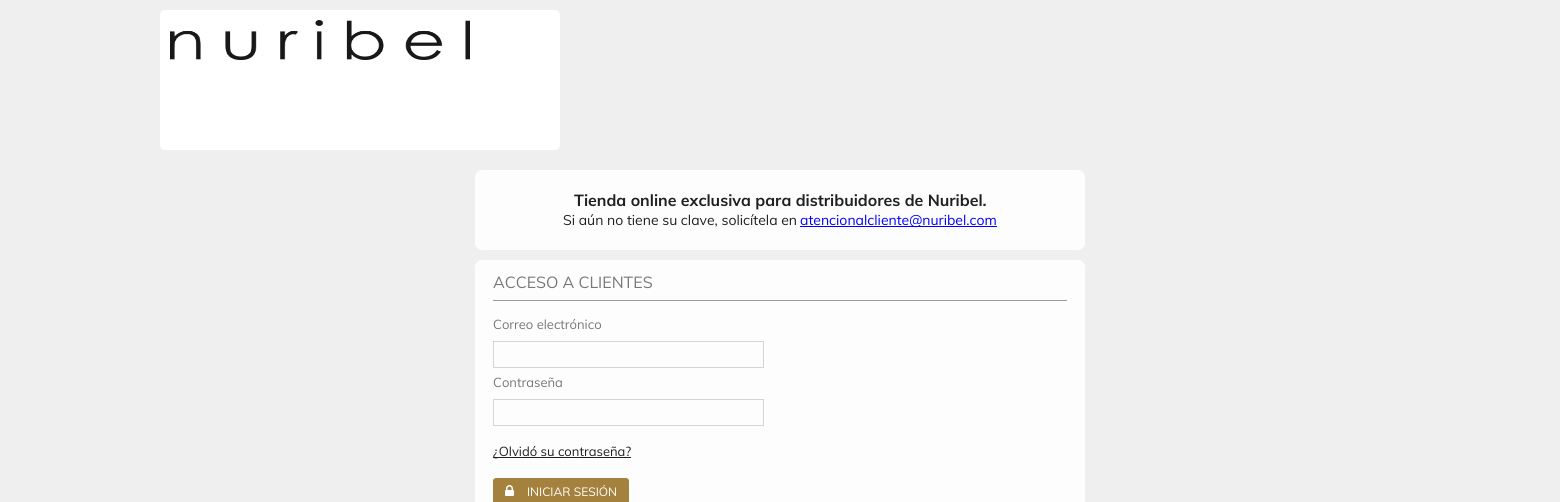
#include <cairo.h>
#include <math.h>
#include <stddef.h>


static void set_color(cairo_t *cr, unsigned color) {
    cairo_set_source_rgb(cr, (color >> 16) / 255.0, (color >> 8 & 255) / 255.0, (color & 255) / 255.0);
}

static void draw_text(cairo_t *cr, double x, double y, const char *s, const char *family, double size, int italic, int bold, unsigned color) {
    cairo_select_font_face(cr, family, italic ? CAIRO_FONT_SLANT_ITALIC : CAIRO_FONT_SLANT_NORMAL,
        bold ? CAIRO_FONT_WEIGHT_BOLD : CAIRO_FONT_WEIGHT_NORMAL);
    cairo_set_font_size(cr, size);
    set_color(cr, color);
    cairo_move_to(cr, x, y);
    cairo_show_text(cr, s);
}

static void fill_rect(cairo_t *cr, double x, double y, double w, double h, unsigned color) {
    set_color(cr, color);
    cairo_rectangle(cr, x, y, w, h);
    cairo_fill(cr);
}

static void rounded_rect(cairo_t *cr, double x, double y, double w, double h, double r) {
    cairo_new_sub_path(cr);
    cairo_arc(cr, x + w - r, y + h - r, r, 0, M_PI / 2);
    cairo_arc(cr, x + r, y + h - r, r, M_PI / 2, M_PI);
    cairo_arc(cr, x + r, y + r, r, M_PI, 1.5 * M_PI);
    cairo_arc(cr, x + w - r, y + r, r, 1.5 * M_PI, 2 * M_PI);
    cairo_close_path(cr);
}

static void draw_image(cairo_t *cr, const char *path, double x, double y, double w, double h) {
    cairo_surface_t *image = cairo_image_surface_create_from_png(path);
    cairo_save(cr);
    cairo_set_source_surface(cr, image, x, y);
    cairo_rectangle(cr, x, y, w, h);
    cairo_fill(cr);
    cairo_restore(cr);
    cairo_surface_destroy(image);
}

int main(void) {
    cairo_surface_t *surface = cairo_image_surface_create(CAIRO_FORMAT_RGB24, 1560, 502);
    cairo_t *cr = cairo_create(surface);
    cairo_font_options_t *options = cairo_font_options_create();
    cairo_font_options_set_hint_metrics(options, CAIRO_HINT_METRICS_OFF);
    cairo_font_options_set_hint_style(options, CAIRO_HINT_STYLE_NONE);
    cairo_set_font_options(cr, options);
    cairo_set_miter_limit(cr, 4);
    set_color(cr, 0xEFEFEF);
    cairo_paint(cr);
    set_color(cr, 0xFFFFFF);
    rounded_rect(cr, 160, 10, 400, 140, 5);
    cairo_fill(cr);
    draw_image(cr, "assets/img1.png", 170, 20, 300, 40);
    set_color(cr, 0xFDFDFD);
    rounded_rect(cr, 475, 170, 610, 80, 7);
    cairo_fill(cr);
    draw_text(cr, 574, 206, "Tienda online exclusiva para distribuidores de Nuribel.", "Muli", 16, 0, 1, 0x202020);
    draw_text(cr, 563, 225, "Si aún no tiene su clave, solicítela en", "Muli", 14, 0, 0, 0x202020);
    fill_rect(cr, 800, 226, 197, 1, 0x0000FF);
    draw_text(cr, 800, 225, "atencionalcliente@nuribel.com", "Muli", 14, 0, 0, 0x0000FF);
    set_color(cr, 0xFDFDFD);
    rounded_rect(cr, 475, 260, 610, 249, 7);
    cairo_fill(cr);
    fill_rect(cr, 493, 300, 574, 1, 0x9C9B9B);
    draw_text(cr, 493, 288, "ACCESO A CLIENTES", "Muli", 16, 0, 0, 0x777777);
    draw_text(cr, 493, 329, "Correo electrónico", "Muli", 13, 0, 0, 0x777777);
    cairo_rectangle(cr, 493.5, 341.5, 270, 26);
    set_color(cr, 0xD6D4D4);
    cairo_set_line_width(cr, 1);
    cairo_stroke(cr);
    draw_text(cr, 493, 387, "Contraseña", "Muli", 13, 0, 0, 0x777777);
    cairo_rectangle(cr, 493.5, 399.5, 270, 26);
    set_color(cr, 0xD6D4D4);
    cairo_stroke(cr);
    fill_rect(cr, 493, 457, 138, 1, 0x202020);
    draw_text(cr, 493, 456, "¿Olvidó su contraseña?", "Muli", 13, 0, 0, 0x202020);
    set_color(cr, 0xA4813C);
    rounded_rect(cr, 493, 478, 136, 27, 3);
    cairo_fill(cr);
    draw_image(cr, "assets/img2.png", 505, 485, 9, 11);
    draw_text(cr, 527, 496, "INICIAR SESIÓN", "Muli", 12, 0, 0, 0xFFFFFF);
    cairo_surface_write_to_png(surface, "output.png");
    cairo_font_options_destroy(options);
    cairo_destroy(cr);
    cairo_surface_destroy(surface);
    return 0;
}
